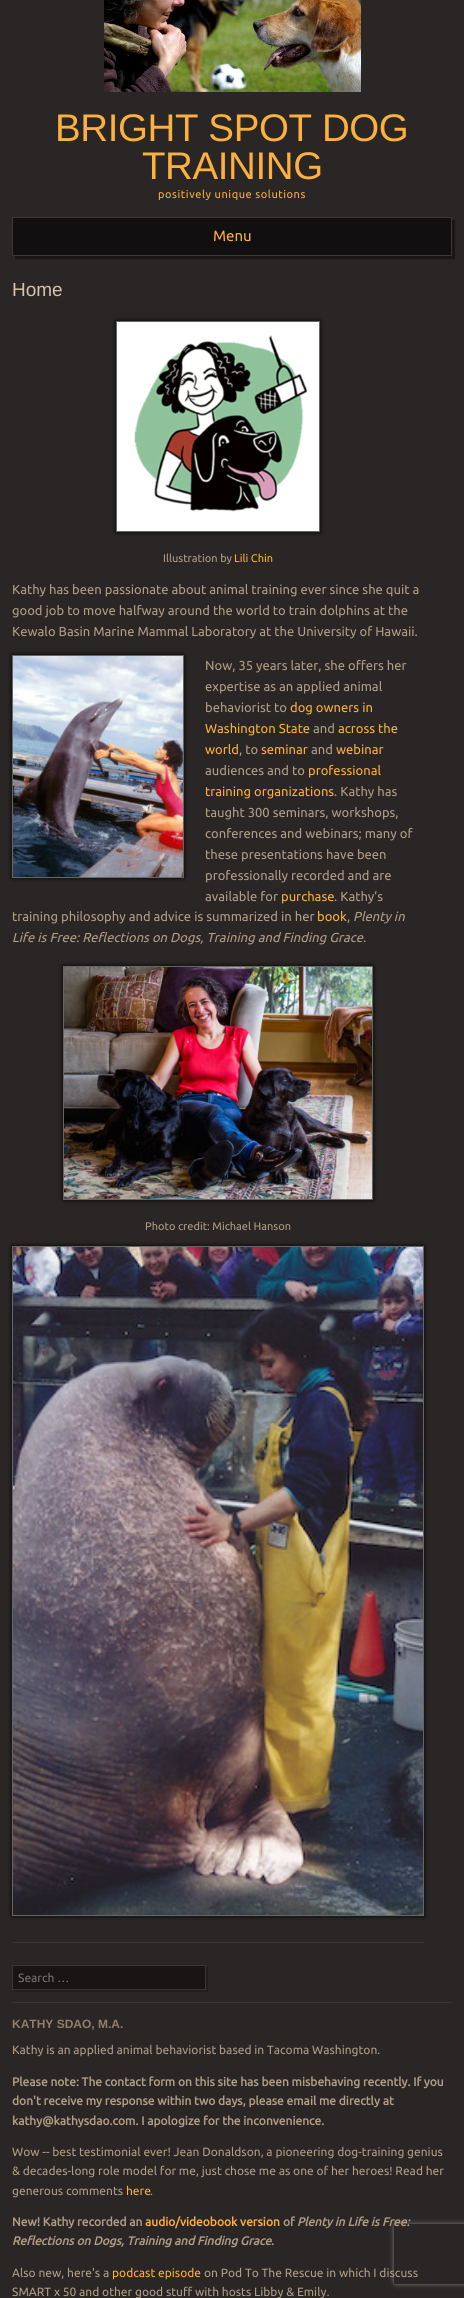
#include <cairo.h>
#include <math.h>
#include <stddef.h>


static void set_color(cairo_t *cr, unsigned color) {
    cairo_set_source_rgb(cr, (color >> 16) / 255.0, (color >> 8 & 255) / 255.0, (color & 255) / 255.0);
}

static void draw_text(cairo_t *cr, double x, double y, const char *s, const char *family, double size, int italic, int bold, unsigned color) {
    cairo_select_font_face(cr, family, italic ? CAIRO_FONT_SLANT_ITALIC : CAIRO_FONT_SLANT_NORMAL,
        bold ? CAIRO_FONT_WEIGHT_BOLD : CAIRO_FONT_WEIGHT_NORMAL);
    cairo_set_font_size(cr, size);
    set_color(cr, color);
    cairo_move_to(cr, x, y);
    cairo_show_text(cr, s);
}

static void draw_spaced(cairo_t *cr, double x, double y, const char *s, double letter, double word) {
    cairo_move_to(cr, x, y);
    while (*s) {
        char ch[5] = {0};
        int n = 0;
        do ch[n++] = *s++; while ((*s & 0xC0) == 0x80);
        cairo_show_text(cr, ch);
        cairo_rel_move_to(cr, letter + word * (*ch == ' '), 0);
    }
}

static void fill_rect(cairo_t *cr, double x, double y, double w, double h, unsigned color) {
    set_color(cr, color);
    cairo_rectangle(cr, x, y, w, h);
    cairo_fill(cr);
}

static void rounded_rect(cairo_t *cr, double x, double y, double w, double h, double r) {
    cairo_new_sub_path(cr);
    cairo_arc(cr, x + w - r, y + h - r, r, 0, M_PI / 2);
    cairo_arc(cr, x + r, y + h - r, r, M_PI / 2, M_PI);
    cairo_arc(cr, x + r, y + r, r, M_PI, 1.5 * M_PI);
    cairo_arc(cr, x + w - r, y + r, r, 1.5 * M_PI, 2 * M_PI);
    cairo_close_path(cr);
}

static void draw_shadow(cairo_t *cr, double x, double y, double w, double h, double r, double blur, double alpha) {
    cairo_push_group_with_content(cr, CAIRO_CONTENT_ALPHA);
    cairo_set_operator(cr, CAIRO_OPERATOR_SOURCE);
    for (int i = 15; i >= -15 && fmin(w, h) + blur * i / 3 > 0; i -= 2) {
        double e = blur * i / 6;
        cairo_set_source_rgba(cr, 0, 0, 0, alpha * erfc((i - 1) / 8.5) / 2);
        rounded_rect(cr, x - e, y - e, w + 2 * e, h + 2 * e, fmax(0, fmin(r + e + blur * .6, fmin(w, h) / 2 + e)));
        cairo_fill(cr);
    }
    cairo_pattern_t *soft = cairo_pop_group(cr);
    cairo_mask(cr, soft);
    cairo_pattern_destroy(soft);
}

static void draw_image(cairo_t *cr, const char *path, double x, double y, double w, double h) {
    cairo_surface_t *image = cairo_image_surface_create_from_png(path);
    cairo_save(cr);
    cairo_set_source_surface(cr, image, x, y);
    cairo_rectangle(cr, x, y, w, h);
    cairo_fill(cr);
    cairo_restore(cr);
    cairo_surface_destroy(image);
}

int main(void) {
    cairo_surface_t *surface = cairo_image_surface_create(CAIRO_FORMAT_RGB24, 464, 2298);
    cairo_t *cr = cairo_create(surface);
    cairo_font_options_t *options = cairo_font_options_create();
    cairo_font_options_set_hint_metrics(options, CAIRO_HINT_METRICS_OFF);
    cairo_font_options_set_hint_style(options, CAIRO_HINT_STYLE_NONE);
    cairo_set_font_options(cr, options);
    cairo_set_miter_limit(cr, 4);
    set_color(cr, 0x292625);
    cairo_paint(cr);
    draw_image(cr, "assets/img1.png", 104, 0, 257, 92);
    cairo_select_font_face(cr, "Liberation Sans", CAIRO_FONT_SLANT_NORMAL, CAIRO_FONT_WEIGHT_NORMAL);
    cairo_set_font_size(cr, 38.5);
    set_color(cr, 0xFCB03E);
    draw_spaced(cr, 55, 141, "BRIGHT SPOT DOG", -0.4, 0);
    draw_spaced(cr, 142, 179, "TRAINING", -0.4, 0);
    cairo_select_font_face(cr, "Ubuntu", CAIRO_FONT_SLANT_NORMAL, CAIRO_FONT_WEIGHT_NORMAL);
    cairo_set_font_size(cr, 11);
    draw_spaced(cr, 158, 198, "positively unique solutions", 0.55, 0);
    set_color(cr, 0x191716);
    cairo_new_path(cr);
    cairo_move_to(cr, 15, 256);
    cairo_line_to(cr, 15, 259);
    cairo_line_to(cr, 455, 259);
    cairo_line_to(cr, 455, 220);
    cairo_line_to(cr, 452, 220);
    cairo_line_to(cr, 452, 256);
    cairo_close_path(cr);
    cairo_fill(cr);
    set_color(cr, 0x120F10);
    cairo_rectangle(cr, 12.5, 217.5, 439, 38);
    cairo_fill_preserve(cr);
    set_color(cr, 0x393636);
    cairo_set_line_width(cr, 1);
    cairo_stroke(cr);
    draw_text(cr, 213, 241, "Menu", "Ubuntu", 15, 0, 0, 0xFCB03E);
    fill_rect(cr, 12, 1942, 412, 1, 0x393636);
    draw_text(cr, 12, 296, "Home", "Liberation Sans", 19, 0, 0, 0xD7C2A8);
    set_color(cr, 0x000000);
    draw_shadow(cr, 116, 321, 204, 211, 0, 2.5, 0.9);
    cairo_rectangle(cr, 116.5, 321.5, 203, 210);
    set_color(cr, 0x666666);
    cairo_stroke(cr);
    draw_image(cr, "assets/img2.png", 117, 322, 202, 209);
    draw_text(cr, 163, 562, "Illustration by", "Ubuntu", 11, 0, 0, 0xB29D85);
    draw_text(cr, 234, 562, "Lili Chin", "Ubuntu", 11, 0, 0, 0xFCB03E);
    draw_text(cr, 12, 594, "Kathy has been passionate about animal training ever since she quit a", "Ubuntu", 13, 0, 0, 0xB29D85);
    draw_text(cr, 12, 615, "good job to move halfway around the world to train dolphins at the", "Ubuntu", 13, 0, 0, 0xB29D85);
    draw_text(cr, 12, 636, "Kewalo Basin Marine Mammal Laboratory at the University of Hawaii.", "Ubuntu", 13, 0, 0, 0xB29D85);
    set_color(cr, 0x000000);
    draw_shadow(cr, 12, 655, 172, 223, 0, 2.5, 0.9);
    cairo_rectangle(cr, 12.5, 655.5, 171, 222);
    set_color(cr, 0x666666);
    cairo_stroke(cr);
    draw_image(cr, "assets/img3.png", 13, 656, 170, 221);
    draw_text(cr, 205, 670, "Now, 35 years later, she offers her", "Ubuntu", 13, 0, 0, 0xB29D85);
    draw_text(cr, 205, 691, "expertise as an applied animal", "Ubuntu", 13, 0, 0, 0xB29D85);
    draw_text(cr, 205, 712, "behaviorist to", "Ubuntu", 13, 0, 0, 0xB29D85);
    draw_text(cr, 290, 712, "dog owners in", "Ubuntu", 13, 0, 0, 0xFCB03E);
    draw_text(cr, 205, 733, "Washington State", "Ubuntu", 13, 0, 0, 0xFCB03E);
    draw_text(cr, 313, 733, "and", "Ubuntu", 13, 0, 0, 0xB29D85);
    draw_text(cr, 338, 733, "across the", "Ubuntu", 13, 0, 0, 0xFCB03E);
    draw_text(cr, 205, 754, "world", "Ubuntu", 13, 0, 0, 0xFCB03E);
    draw_text(cr, 239, 754, ", to", "Ubuntu", 13, 0, 0, 0xB29D85);
    draw_text(cr, 261, 754, "seminar", "Ubuntu", 13, 0, 0, 0xFCB03E);
    draw_text(cr, 311, 754, "and", "Ubuntu", 13, 0, 0, 0xB29D85);
    draw_text(cr, 336, 754, "webinar", "Ubuntu", 13, 0, 0, 0xFCB03E);
    draw_text(cr, 205, 775, "audiences and to", "Ubuntu", 13, 0, 0, 0xB29D85);
    draw_text(cr, 308, 775, "professional", "Ubuntu", 13, 0, 0, 0xFCB03E);
    draw_text(cr, 205, 796, "training organizations", "Ubuntu", 13, 0, 0, 0xFCB03E);
    draw_text(cr, 334, 796, ". Kathy has", "Ubuntu", 13, 0, 0, 0xB29D85);
    draw_text(cr, 205, 817, "taught 300 seminars, workshops,", "Ubuntu", 13, 0, 0, 0xB29D85);
    draw_text(cr, 205, 838, "conferences and webinars; many of", "Ubuntu", 13, 0, 0, 0xB29D85);
    draw_text(cr, 205, 859, "these presentations have been", "Ubuntu", 13, 0, 0, 0xB29D85);
    draw_text(cr, 205, 880, "professionally recorded and are", "Ubuntu", 13, 0, 0, 0xB29D85);
    draw_text(cr, 205, 901, "available for", "Ubuntu", 13, 0, 0, 0xB29D85);
    draw_text(cr, 281, 901, "purchase", "Ubuntu", 13, 0, 0, 0xFCB03E);
    draw_text(cr, 334, 901, ". Kathy’s", "Ubuntu", 13, 0, 0, 0xB29D85);
    draw_text(cr, 12, 921, "training philosophy and advice is summarized in her", "Ubuntu", 13, 0, 0, 0xB29D85);
    draw_text(cr, 317, 921, "book", "Ubuntu", 13, 0, 0, 0xFCB03E);
    draw_text(cr, 347, 921, ",", "Ubuntu", 13, 0, 0, 0xB29D85);
    draw_text(cr, 353, 921, "Plenty in", "Ubuntu", 13, 1, 0, 0xB29D85);
    draw_text(cr, 12, 942, "Life is Free: Reflections on Dogs, Training and Finding Grace", "Ubuntu", 13, 1, 0, 0xB29D85);
    draw_text(cr, 363, 942, ".", "Ubuntu", 13, 0, 0, 0xB29D85);
    set_color(cr, 0x000000);
    draw_shadow(cr, 63, 966, 310, 234, 0, 2.5, 0.9);
    cairo_rectangle(cr, 63.5, 966.5, 309, 233);
    set_color(cr, 0x666666);
    cairo_stroke(cr);
    draw_image(cr, "assets/img4.png", 64, 967, 308, 232);
    draw_text(cr, 145, 1230, "Photo credit: Michael Hanson", "Ubuntu", 11, 0, 0, 0xB29D85);
    set_color(cr, 0x000000);
    draw_shadow(cr, 12, 1246, 412, 670, 0, 2.5, 0.9);
    cairo_rectangle(cr, 12.5, 1246.5, 411, 669);
    set_color(cr, 0x666666);
    cairo_stroke(cr);
    draw_image(cr, "assets/img5.png", 13, 1247, 410, 668);
    set_color(cr, 0x211E1E);
    cairo_new_path(cr);
    cairo_move_to(cr, 14, 1990);
    cairo_line_to(cr, 14, 1992);
    cairo_line_to(cr, 208, 1992);
    cairo_line_to(cr, 208, 1967);
    cairo_line_to(cr, 206, 1967);
    cairo_line_to(cr, 206, 1990);
    cairo_close_path(cr);
    cairo_fill(cr);
    set_color(cr, 0x181514);
    cairo_rectangle(cr, 12.5, 1965.5, 193, 24);
    cairo_fill_preserve(cr);
    set_color(cr, 0x393736);
    cairo_stroke(cr);
    draw_text(cr, 18, 1982, "Search …", "Ubuntu", 12, 0, 0, 0x757575);
    fill_rect(cr, 12, 2002, 440, 1, 0x393636);
    draw_text(cr, 12, 2028, "KATHY SDAO, M.A.", "Liberation Sans", 12, 0, 1, 0x927E66);
    draw_text(cr, 12, 2054, "Kathy is an applied animal behaviorist based in Tacoma Washington.", "Ubuntu", 12, 0, 0, 0xB29D85);
    draw_text(cr, 12, 2086, "Please note: The contact form on this site has been misbehaving recently. If you", "Ubuntu", 12, 0, 1, 0xB29D85);
    draw_text(cr, 12, 2105, "don't receive my response within two days, please email me directly at", "Ubuntu", 12, 0, 1, 0xB29D85);
    draw_text(cr, 12, 2125, "kathy@kathysdao.com. I apologize for the inconvenience.", "Ubuntu", 12, 0, 1, 0xB29D85);
    draw_text(cr, 12, 2156, "Wow -- best testimonial ever! Jean Donaldson, a pioneering dog-training genius", "Ubuntu", 12, 0, 0, 0xB29D85);
    draw_text(cr, 12, 2175, "& decades-long role model for me, just chose me as one of her heroes! Read her", "Ubuntu", 12, 0, 0, 0xB29D85);
    draw_text(cr, 12, 2195, "generous comments", "Ubuntu", 12, 0, 0, 0xB29D85);
    draw_text(cr, 126, 2195, "here", "Ubuntu", 12, 0, 0, 0xFCB03E);
    draw_text(cr, 150, 2195, ".", "Ubuntu", 12, 0, 0, 0xB29D85);
    draw_text(cr, 12, 2226, "New! Kathy recorded an", "Ubuntu", 12, 0, 1, 0xB29D85);
    draw_text(cr, 145, 2226, "audio/videobook version", "Ubuntu", 12, 0, 1, 0xFCB03E);
    draw_text(cr, 283, 2226, "of", "Ubuntu", 12, 0, 1, 0xB29D85);
    cairo_save(cr);
    cairo_set_fill_rule(cr, CAIRO_FILL_RULE_EVEN_ODD);
    cairo_new_path(cr);
    cairo_move_to(cr, 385, 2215);
    cairo_line_to(cr, 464, 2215);
    cairo_line_to(cr, 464, 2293);
    cairo_line_to(cr, 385, 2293);
    cairo_close_path(cr);
    cairo_move_to(cr, 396, 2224);
    cairo_line_to(cr, 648, 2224);
    cairo_curve_to(cr, 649, 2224, 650, 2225, 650, 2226);
    cairo_line_to(cr, 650, 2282);
    cairo_curve_to(cr, 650, 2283, 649, 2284, 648, 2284);
    cairo_line_to(cr, 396, 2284);
    cairo_curve_to(cr, 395, 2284, 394, 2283, 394, 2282);
    cairo_line_to(cr, 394, 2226);
    cairo_curve_to(cr, 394, 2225, 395, 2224, 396, 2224);
    cairo_close_path(cr);
    cairo_clip(cr);
    set_color(cr, 0x808080);
    draw_shadow(cr, 394, 2224, 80, 60, 2, 2.5, 1);
    cairo_restore(cr);
    draw_text(cr, 297, 2226, "Plenty in Life is Free:", "Ubuntu", 12, 1, 1, 0xB29D85);
    draw_text(cr, 12, 2245, "Reflections on Dogs, Training and Finding Grace", "Ubuntu", 12, 1, 1, 0xB29D85);
    draw_text(cr, 271, 2245, ".", "Ubuntu", 12, 0, 1, 0xB29D85);
    draw_text(cr, 12, 2277, "Also new, here's a", "Ubuntu", 12, 0, 0, 0xB29D85);
    draw_text(cr, 112, 2277, "podcast episode", "Ubuntu", 12, 0, 0, 0xFCB03E);
    draw_text(cr, 204, 2277, "on Pod To The Rescue in which I discuss", "Ubuntu", 12, 0, 0, 0xB29D85);
    draw_text(cr, 12, 2296, "SMART x 50 and other good stuff with hosts Libby & Emily.", "Ubuntu", 12, 0, 0, 0xB29D85);
    cairo_surface_write_to_png(surface, "output.png");
    cairo_font_options_destroy(options);
    cairo_destroy(cr);
    cairo_surface_destroy(surface);
    return 0;
}
